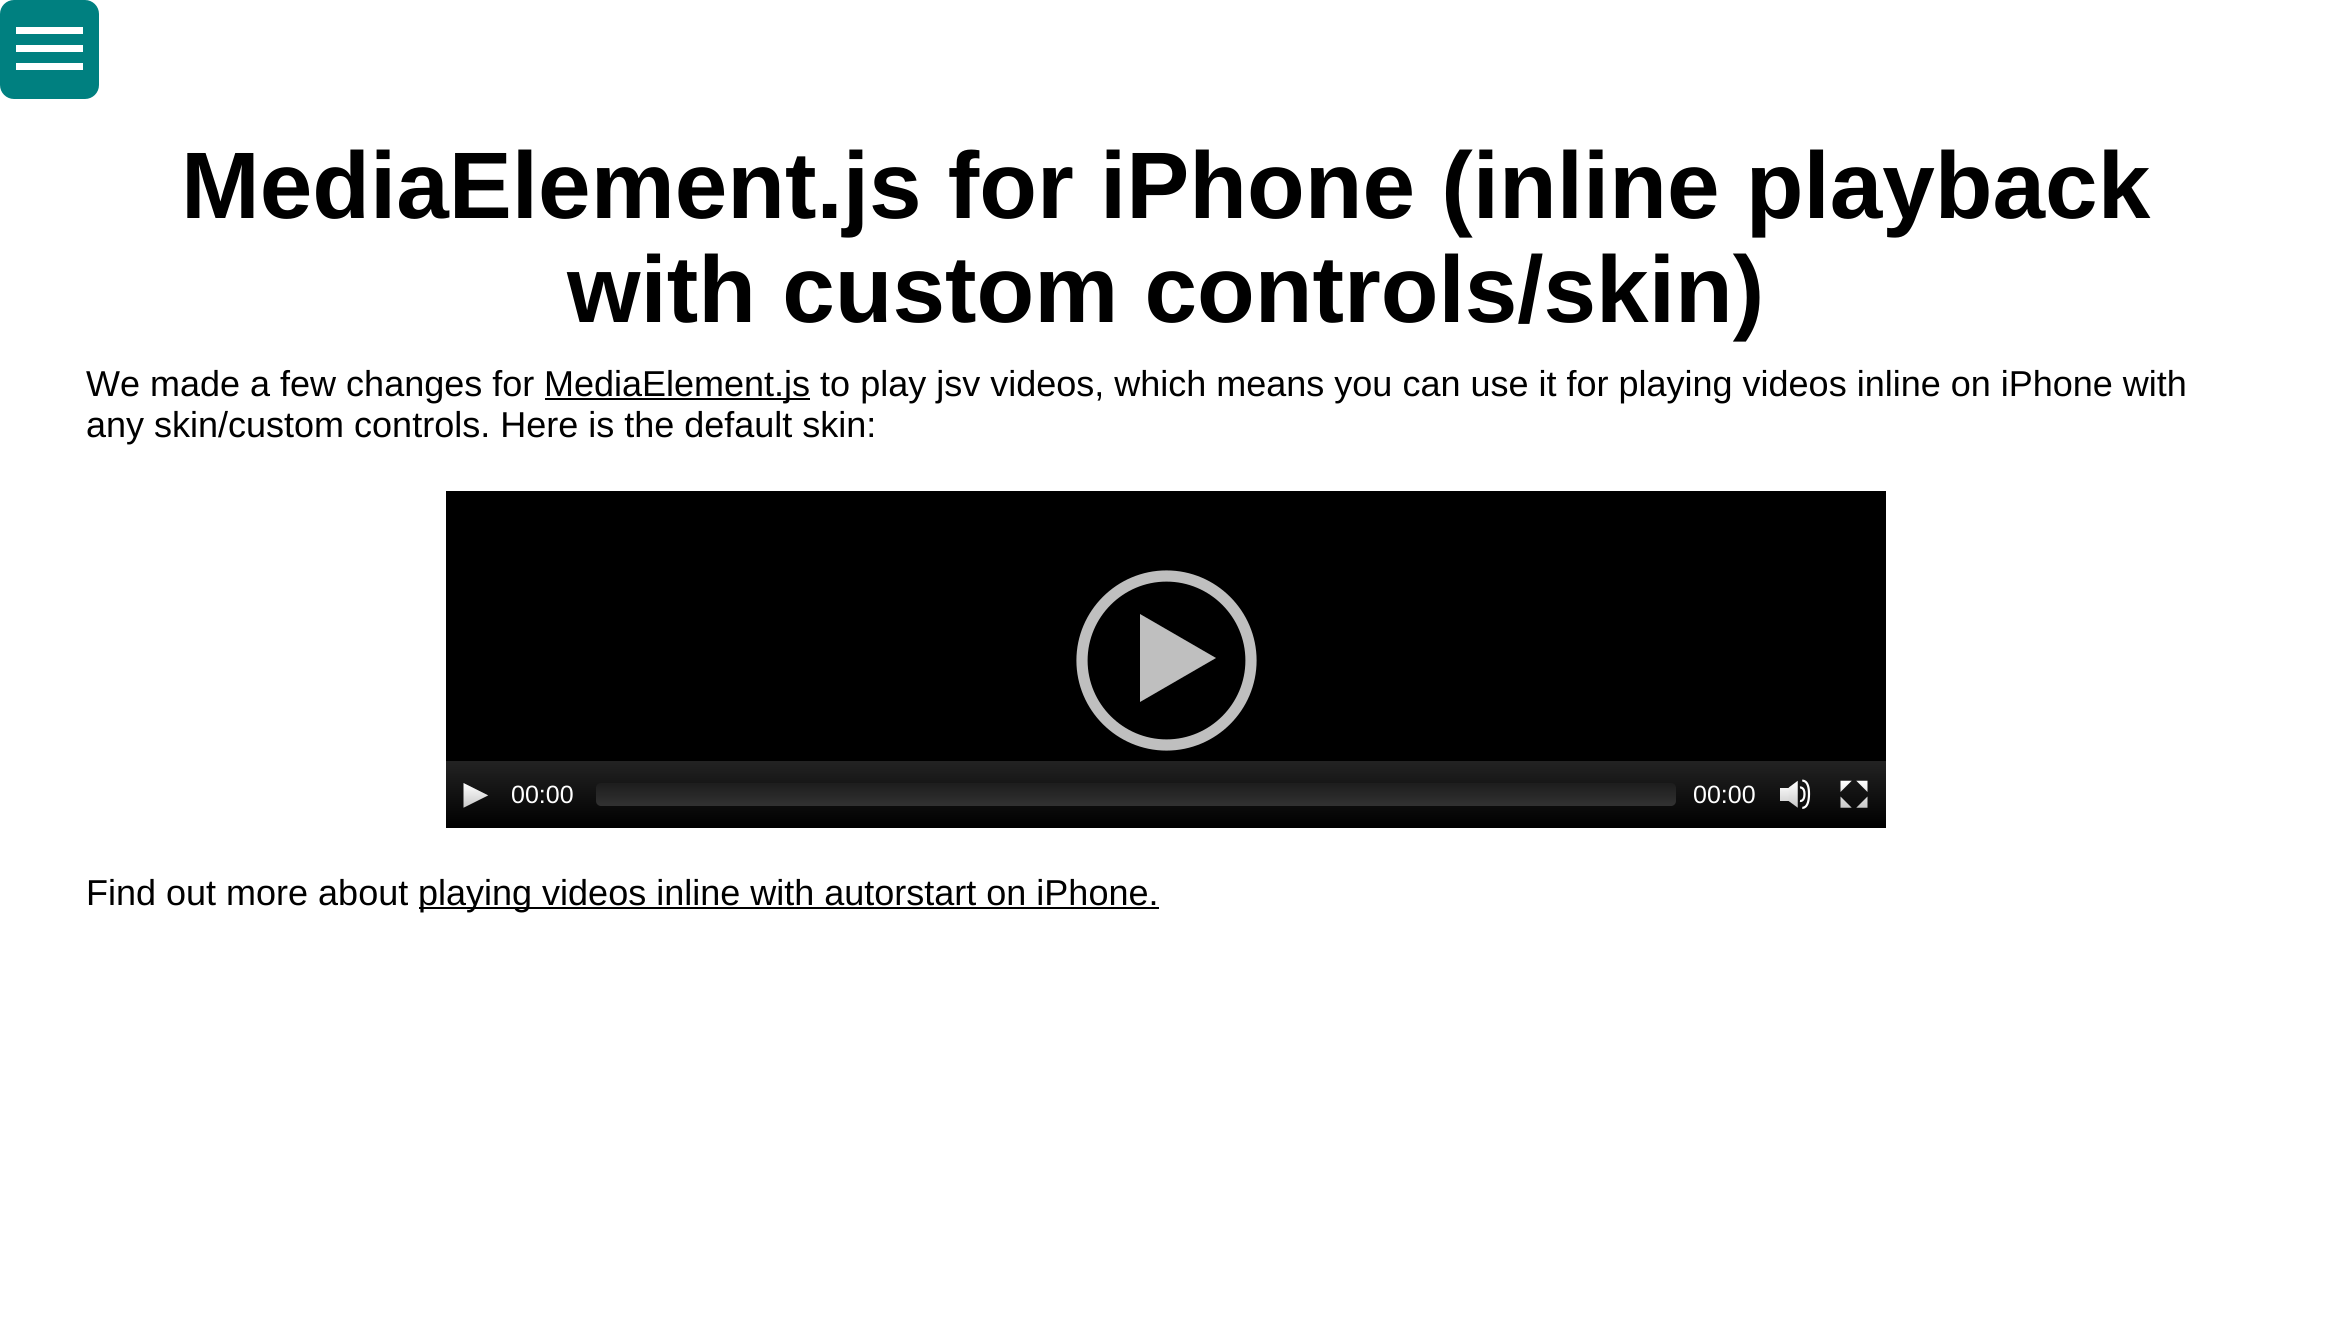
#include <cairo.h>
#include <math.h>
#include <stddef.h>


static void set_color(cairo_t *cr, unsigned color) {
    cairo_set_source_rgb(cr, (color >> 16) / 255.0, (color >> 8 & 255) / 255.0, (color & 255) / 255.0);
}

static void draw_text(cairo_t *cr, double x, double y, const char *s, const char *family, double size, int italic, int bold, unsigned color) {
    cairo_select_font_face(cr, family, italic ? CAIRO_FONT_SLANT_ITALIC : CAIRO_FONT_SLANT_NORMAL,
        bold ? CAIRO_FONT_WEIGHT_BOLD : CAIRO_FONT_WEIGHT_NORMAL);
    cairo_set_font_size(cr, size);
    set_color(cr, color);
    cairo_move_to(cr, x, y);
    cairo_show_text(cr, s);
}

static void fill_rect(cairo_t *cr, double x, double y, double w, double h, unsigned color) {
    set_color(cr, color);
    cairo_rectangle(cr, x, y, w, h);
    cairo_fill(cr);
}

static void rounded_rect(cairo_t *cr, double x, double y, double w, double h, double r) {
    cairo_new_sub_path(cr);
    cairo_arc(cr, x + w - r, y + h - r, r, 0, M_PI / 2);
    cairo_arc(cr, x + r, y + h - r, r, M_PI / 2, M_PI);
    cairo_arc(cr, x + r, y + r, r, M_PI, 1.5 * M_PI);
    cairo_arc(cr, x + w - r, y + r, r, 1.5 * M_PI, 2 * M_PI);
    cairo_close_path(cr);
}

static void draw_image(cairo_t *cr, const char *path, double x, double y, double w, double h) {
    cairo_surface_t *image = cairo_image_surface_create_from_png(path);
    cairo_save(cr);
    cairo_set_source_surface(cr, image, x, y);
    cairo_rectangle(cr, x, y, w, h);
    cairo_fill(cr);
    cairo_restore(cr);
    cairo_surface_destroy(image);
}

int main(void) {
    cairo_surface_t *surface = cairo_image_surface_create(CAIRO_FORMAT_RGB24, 2329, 1327);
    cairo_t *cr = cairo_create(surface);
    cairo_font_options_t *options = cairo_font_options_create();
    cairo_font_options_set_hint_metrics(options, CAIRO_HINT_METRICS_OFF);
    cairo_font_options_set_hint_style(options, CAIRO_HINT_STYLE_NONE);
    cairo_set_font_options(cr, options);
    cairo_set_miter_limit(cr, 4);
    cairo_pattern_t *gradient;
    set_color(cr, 0xFFFFFF);
    cairo_paint(cr);
    set_color(cr, 0x008080);
    rounded_rect(cr, 0, 0, 99, 99, 14);
    cairo_fill(cr);
    fill_rect(cr, 16, 27, 67, 7, 0xFFFFFF);
    fill_rect(cr, 16, 45, 67, 7, 0xFFFFFF);
    fill_rect(cr, 16, 63, 67, 7, 0xFFFFFF);
    draw_text(cr, 181, 218, "MediaElement.js for iPhone (inline playback", "Liberation Sans", 94.5, 0, 1, 0x000000);
    draw_text(cr, 567, 322, "with custom controls/skin)", "Liberation Sans", 94.5, 0, 1, 0x000000);
    draw_text(cr, 86, 396, "We made a few changes for", "Liberation Sans", 36, 0, 0, 0x000000);
    fill_rect(cr, 545, 398, 265, 2, 0x000000);
    draw_text(cr, 544, 396, "MediaElement.js to play jsv videos, which means you can use it for playing videos inline on iPhone with", "Liberation Sans", 36, 0, 0, 0x000000);
    draw_text(cr, 86, 437, "any skin/custom controls. Here is the default skin:", "Liberation Sans", 36, 0, 0, 0x000000);
    fill_rect(cr, 446, 491, 1440, 270, 0x000000);
    set_color(cr, 0xBFBFBF);
    cairo_new_path(cr);
    cairo_move_to(cr, 1216, 658);
    cairo_line_to(cr, 1140, 702);
    cairo_line_to(cr, 1140, 614);
    cairo_close_path(cr);
    cairo_fill(cr);
    cairo_new_path(cr);
    cairo_move_to(cr, 1082, 660.5);
    cairo_curve_to(cr, 1082, 614, 1120, 576, 1166.5, 576);
    cairo_curve_to(cr, 1213, 576, 1251, 614, 1251, 660.5);
    cairo_curve_to(cr, 1251, 707, 1213, 745, 1166.5, 745);
    cairo_curve_to(cr, 1120, 745, 1082, 707, 1082, 660.5);
    cairo_close_path(cr);
    cairo_set_line_width(cr, 11.2);
    cairo_stroke(cr);
    gradient = cairo_pattern_create_linear(1166, 760, 1166, 828);
    cairo_pattern_add_color_stop_rgba(gradient, 0, 0.137, 0.137, 0.137, 1);
    cairo_pattern_add_color_stop_rgba(gradient, 1, 0, 0, 0, 1);
    cairo_set_source(cr, gradient);
    cairo_pattern_destroy(gradient);
    cairo_rectangle(cr, 446, 761, 1440, 67);
    cairo_fill(cr);
    draw_image(cr, "assets/img1.png", 463, 783, 26, 25);
    draw_text(cr, 511, 803, "00:00", "Liberation Sans", 25, 0, 0, 0xFFFFFF);
    gradient = cairo_pattern_create_linear(1136, 783, 1136, 806);
    cairo_pattern_add_color_stop_rgba(gradient, 0, 0.118, 0.118, 0.118, 0.8);
    cairo_pattern_add_color_stop_rgba(gradient, 1, 0.235, 0.235, 0.235, 0.8);
    cairo_set_source(cr, gradient);
    cairo_pattern_destroy(gradient);
    rounded_rect(cr, 596, 783, 1080, 23, 5);
    cairo_fill(cr);
    draw_text(cr, 1693, 803, "00:00", "Liberation Sans", 25, 0, 0, 0xFFFFFF);
    draw_image(cr, "assets/img2.png", 1780, 779, 31, 30);
    draw_image(cr, "assets/img3.png", 1840, 780, 28, 28);
    draw_text(cr, 86, 905, "Find out more about", "Liberation Sans", 36, 0, 0, 0x000000);
    fill_rect(cr, 419, 907, 740, 2, 0x000000);
    draw_text(cr, 418, 905, "playing videos inline with autorstart on iPhone.", "Liberation Sans", 36, 0, 0, 0x000000);
    cairo_surface_write_to_png(surface, "output.png");
    cairo_font_options_destroy(options);
    cairo_destroy(cr);
    cairo_surface_destroy(surface);
    return 0;
}
